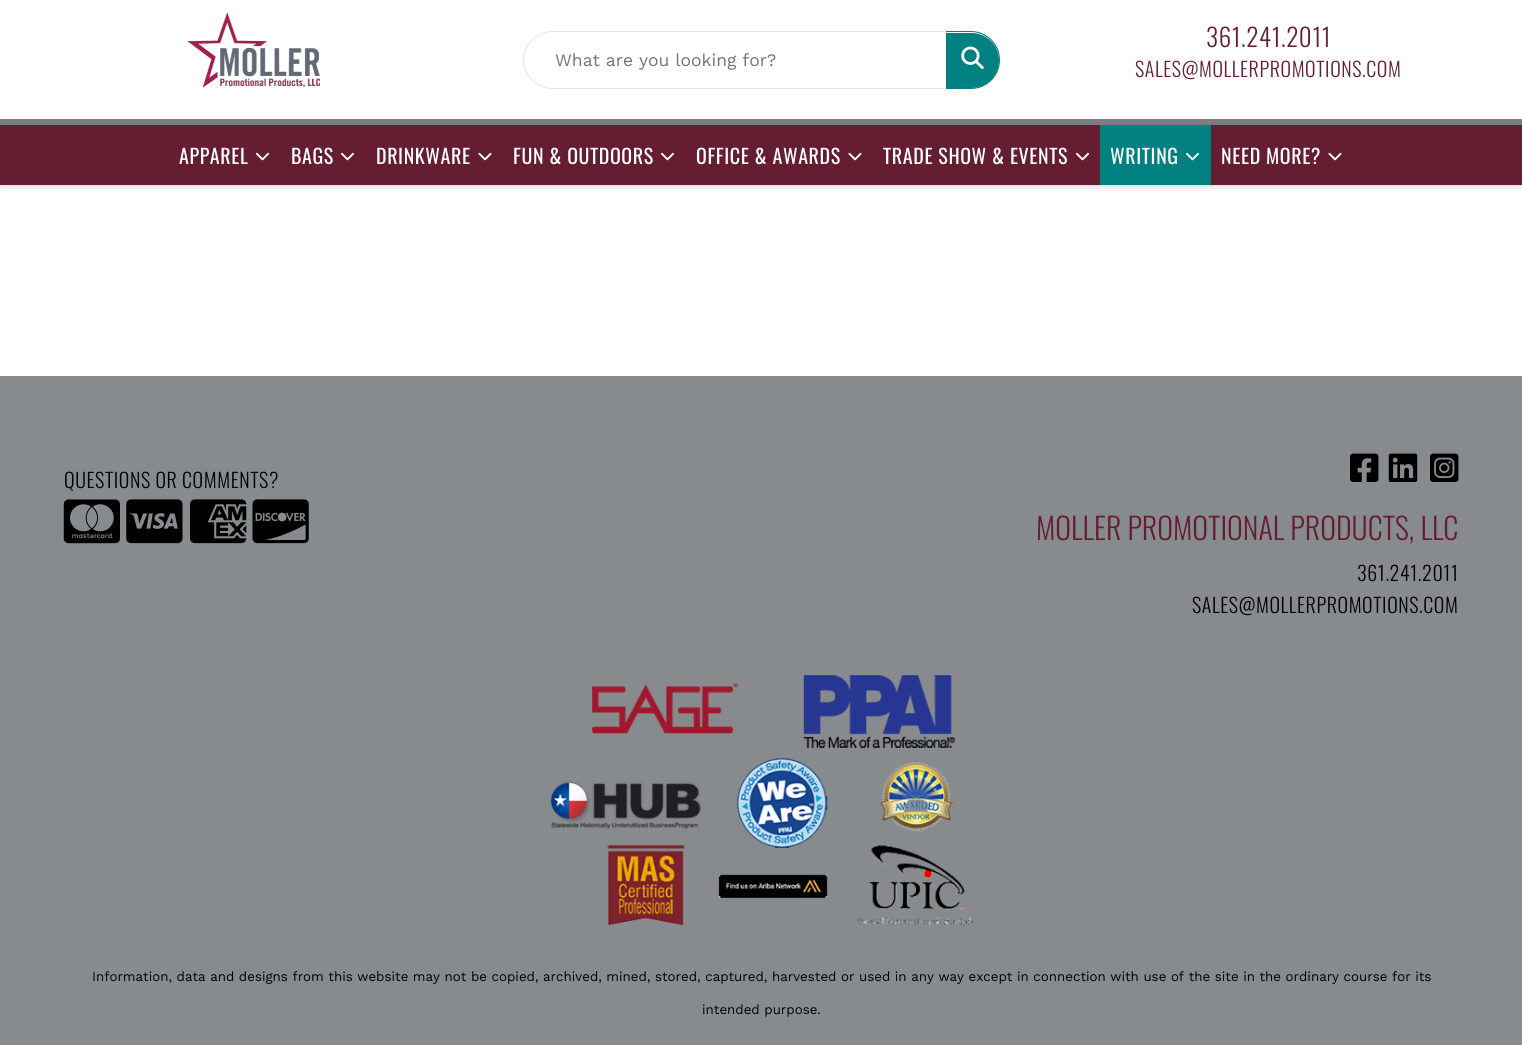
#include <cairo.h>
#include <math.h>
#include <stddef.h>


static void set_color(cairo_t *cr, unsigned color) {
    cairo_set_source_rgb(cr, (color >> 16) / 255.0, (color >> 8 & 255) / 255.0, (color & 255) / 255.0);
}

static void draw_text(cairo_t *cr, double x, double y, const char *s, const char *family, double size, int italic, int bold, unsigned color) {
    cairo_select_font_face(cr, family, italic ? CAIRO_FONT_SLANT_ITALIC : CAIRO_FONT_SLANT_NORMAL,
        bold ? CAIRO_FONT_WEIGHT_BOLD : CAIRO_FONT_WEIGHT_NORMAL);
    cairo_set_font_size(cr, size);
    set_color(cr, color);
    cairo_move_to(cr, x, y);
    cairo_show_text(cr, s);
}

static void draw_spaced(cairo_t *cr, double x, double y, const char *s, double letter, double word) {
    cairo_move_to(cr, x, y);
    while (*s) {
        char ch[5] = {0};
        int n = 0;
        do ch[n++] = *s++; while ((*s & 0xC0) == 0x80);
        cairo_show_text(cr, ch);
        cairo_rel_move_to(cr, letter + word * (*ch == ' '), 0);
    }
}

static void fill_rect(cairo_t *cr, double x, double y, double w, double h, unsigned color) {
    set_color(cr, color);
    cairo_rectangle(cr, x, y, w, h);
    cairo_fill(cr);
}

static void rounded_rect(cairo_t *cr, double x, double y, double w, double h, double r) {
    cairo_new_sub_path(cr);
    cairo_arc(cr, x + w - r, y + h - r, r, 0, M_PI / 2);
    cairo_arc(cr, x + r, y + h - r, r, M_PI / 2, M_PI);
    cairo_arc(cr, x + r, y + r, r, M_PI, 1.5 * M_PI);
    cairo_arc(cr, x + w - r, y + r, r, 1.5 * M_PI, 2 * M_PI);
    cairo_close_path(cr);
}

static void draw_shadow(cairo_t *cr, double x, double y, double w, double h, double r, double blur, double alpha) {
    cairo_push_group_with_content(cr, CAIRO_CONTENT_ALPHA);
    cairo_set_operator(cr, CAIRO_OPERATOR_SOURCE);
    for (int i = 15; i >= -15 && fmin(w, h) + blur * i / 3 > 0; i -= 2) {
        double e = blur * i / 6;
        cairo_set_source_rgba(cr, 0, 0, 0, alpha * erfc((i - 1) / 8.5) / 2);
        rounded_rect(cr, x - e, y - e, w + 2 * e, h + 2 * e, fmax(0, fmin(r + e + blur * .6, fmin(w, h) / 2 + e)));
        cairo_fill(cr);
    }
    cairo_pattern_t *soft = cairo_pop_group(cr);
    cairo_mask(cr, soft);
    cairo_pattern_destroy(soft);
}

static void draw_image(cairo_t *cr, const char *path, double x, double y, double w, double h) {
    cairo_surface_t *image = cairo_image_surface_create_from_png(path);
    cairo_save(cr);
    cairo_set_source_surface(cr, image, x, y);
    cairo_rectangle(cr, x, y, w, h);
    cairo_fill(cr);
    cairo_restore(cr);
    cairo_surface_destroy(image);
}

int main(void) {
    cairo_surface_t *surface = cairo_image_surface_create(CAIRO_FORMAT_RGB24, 1522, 1045);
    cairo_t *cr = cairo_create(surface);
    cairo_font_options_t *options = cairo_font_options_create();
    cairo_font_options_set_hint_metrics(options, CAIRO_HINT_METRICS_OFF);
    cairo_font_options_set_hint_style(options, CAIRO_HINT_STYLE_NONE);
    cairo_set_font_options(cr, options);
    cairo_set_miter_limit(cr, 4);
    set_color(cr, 0xFFFFFF);
    cairo_paint(cr);
    set_color(cr, 0x000000);
    draw_shadow(cr, 0, 0, 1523, 185, 0, 3, 0.1);
    fill_rect(cr, 0, 0, 1522, 119, 0xFFFFFF);
    draw_image(cr, "assets/img1.png", 187, 12, 133, 76);
    cairo_new_path(cr);
    cairo_move_to(cr, 552, 31.5);
    cairo_line_to(cr, 947.5, 31.5);
    cairo_line_to(cr, 947.5, 88.5);
    cairo_line_to(cr, 552, 88.5);
    cairo_curve_to(cr, 536.5, 88.5, 523.5, 75.5, 523.5, 60);
    cairo_curve_to(cr, 523.5, 44.5, 536.5, 31.5, 552, 31.5);
    cairo_close_path(cr);
    set_color(cr, 0xE4E4E4);
    cairo_set_line_width(cr, 1);
    cairo_stroke(cr);
    draw_text(cr, 555, 66, "What are you looking for?", "Work Sans", 17.5, 0, 0, 0x6C757D);
    set_color(cr, 0x008080);
    cairo_new_path(cr);
    cairo_move_to(cr, 946, 33);
    cairo_line_to(cr, 971.5, 33);
    cairo_curve_to(cr, 986.5, 33, 999, 45.5, 999, 60.5);
    cairo_curve_to(cr, 999, 75.5, 986.5, 88, 971.5, 88);
    cairo_line_to(cr, 946, 88);
    cairo_close_path(cr);
    cairo_fill(cr);
    cairo_set_fill_rule(cr, CAIRO_FILL_RULE_EVEN_ODD);
    cairo_new_path(cr);
    cairo_move_to(cr, 946, 31);
    cairo_line_to(cr, 971, 31);
    cairo_curve_to(cr, 987, 31, 1000, 44, 1000, 60);
    cairo_curve_to(cr, 1000, 76, 987, 89, 971, 89);
    cairo_line_to(cr, 946, 89);
    cairo_close_path(cr);
    cairo_move_to(cr, 946, 32);
    cairo_line_to(cr, 971, 32);
    cairo_curve_to(cr, 986, 32, 999, 45, 999, 60);
    cairo_curve_to(cr, 999, 75, 986, 88, 971, 88);
    cairo_line_to(cr, 946, 88);
    cairo_close_path(cr);
    cairo_fill(cr);
    draw_image(cr, "assets/img2.png", 961, 46, 23, 23);
    cairo_select_font_face(cr, "Oswald Light", CAIRO_FONT_SLANT_NORMAL, CAIRO_FONT_WEIGHT_NORMAL);
    cairo_set_font_size(cr, 25);
    set_color(cr, 0x651D32);
    draw_spaced(cr, 1206, 47, "361.241.2011", 0.6, 0);
    cairo_set_font_size(cr, 20);
    draw_spaced(cr, 1135, 77, "SALES@MOLLERPROMOTIONS.COM", 0.6, 0);
    set_color(cr, 0x000000);
    draw_shadow(cr, 0, 121, 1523, 67, 0, 2.5, 0.07);
    fill_rect(cr, 0, 125, 1522, 60, 0x651D32);
    fill_rect(cr, 0, 119, 1522, 6, 0x7B7C80);
    cairo_select_font_face(cr, "Oswald", CAIRO_FONT_SLANT_NORMAL, CAIRO_FONT_WEIGHT_NORMAL);
    set_color(cr, 0xFFFFFF);
    draw_spaced(cr, 179, 164, "APPAREL", 0.6, 0);
    draw_image(cr, "assets/img3.png", 256, 152, 13, 9);
    draw_spaced(cr, 291, 164, "BAGS", 0.6, 0);
    draw_image(cr, "assets/img3.png", 341, 152, 13, 9);
    draw_spaced(cr, 376, 164, "DRINKWARE", 0.6, 0);
    draw_image(cr, "assets/img4.png", 478, 152, 14, 9);
    draw_spaced(cr, 513, 164, "FUN & OUTDOORS", 0.6, 0);
    draw_image(cr, "assets/img3.png", 661, 152, 13, 9);
    draw_spaced(cr, 696, 164, "OFFICE & AWARDS", 0.6, 0);
    draw_image(cr, "assets/img4.png", 848, 152, 14, 9);
    draw_spaced(cr, 883, 164, "TRADE SHOW & EVENTS", 0.6, 0);
    draw_image(cr, "assets/img3.png", 1076, 152, 13, 9);
    fill_rect(cr, 1100, 125, 111, 60, 0x008080);
    set_color(cr, 0xFFFFFF);
    draw_spaced(cr, 1110, 164, "WRITING", 0.6, 0);
    draw_image(cr, "assets/img5.png", 1186, 152, 13, 9);
    draw_spaced(cr, 1221, 164, "NEED MORE?", 0.6, 0);
    draw_image(cr, "assets/img4.png", 1328, 152, 14, 9);
    fill_rect(cr, 0, 376, 1522, 669, 0x888B8D);
    cairo_select_font_face(cr, "Oswald Light", CAIRO_FONT_SLANT_NORMAL, CAIRO_FONT_WEIGHT_NORMAL);
    set_color(cr, 0x000000);
    draw_spaced(cr, 64, 488, "QUESTIONS OR COMMENTS?", 0.6, 0);
    draw_image(cr, "assets/img6.png", 63, 499, 57, 45);
    draw_image(cr, "assets/img7.png", 126, 499, 57, 45);
    draw_image(cr, "assets/img8.png", 190, 499, 57, 45);
    draw_image(cr, "assets/img9.png", 252, 499, 57, 45);
    draw_image(cr, "assets/img10.png", 1350, 453, 29, 29);
    draw_image(cr, "assets/img11.png", 1388, 453, 30, 29);
    draw_image(cr, "assets/img12.png", 1430, 453, 29, 29);
    draw_text(cr, 1036, 540, "MOLLER PROMOTIONAL PRODUCTS, LLC", "Oswald Light", 30, 0, 0, 0x651D32);
    cairo_set_font_size(cr, 20);
    set_color(cr, 0x000000);
    draw_spaced(cr, 1357, 581, "361.241.2011", 0.6, 0);
    draw_spaced(cr, 1192, 613, "SALES@MOLLERPROMOTIONS.COM", 0.6, 0);
    draw_image(cr, "assets/img13.png", 550, 675, 425, 251);
    draw_text(cr, 92, 981, "Information, data and designs from this website may not be copied, archived, mined, stored, captured, harvested or used in any way except in connection with use of the site in the ordinary course for its", "Work Sans", 13.33, 0, 0, 0x000000);
    draw_text(cr, 702, 1014, "intended purpose.", "Work Sans", 13.33, 0, 0, 0x000000);
    cairo_surface_write_to_png(surface, "output.png");
    cairo_font_options_destroy(options);
    cairo_destroy(cr);
    cairo_surface_destroy(surface);
    return 0;
}
